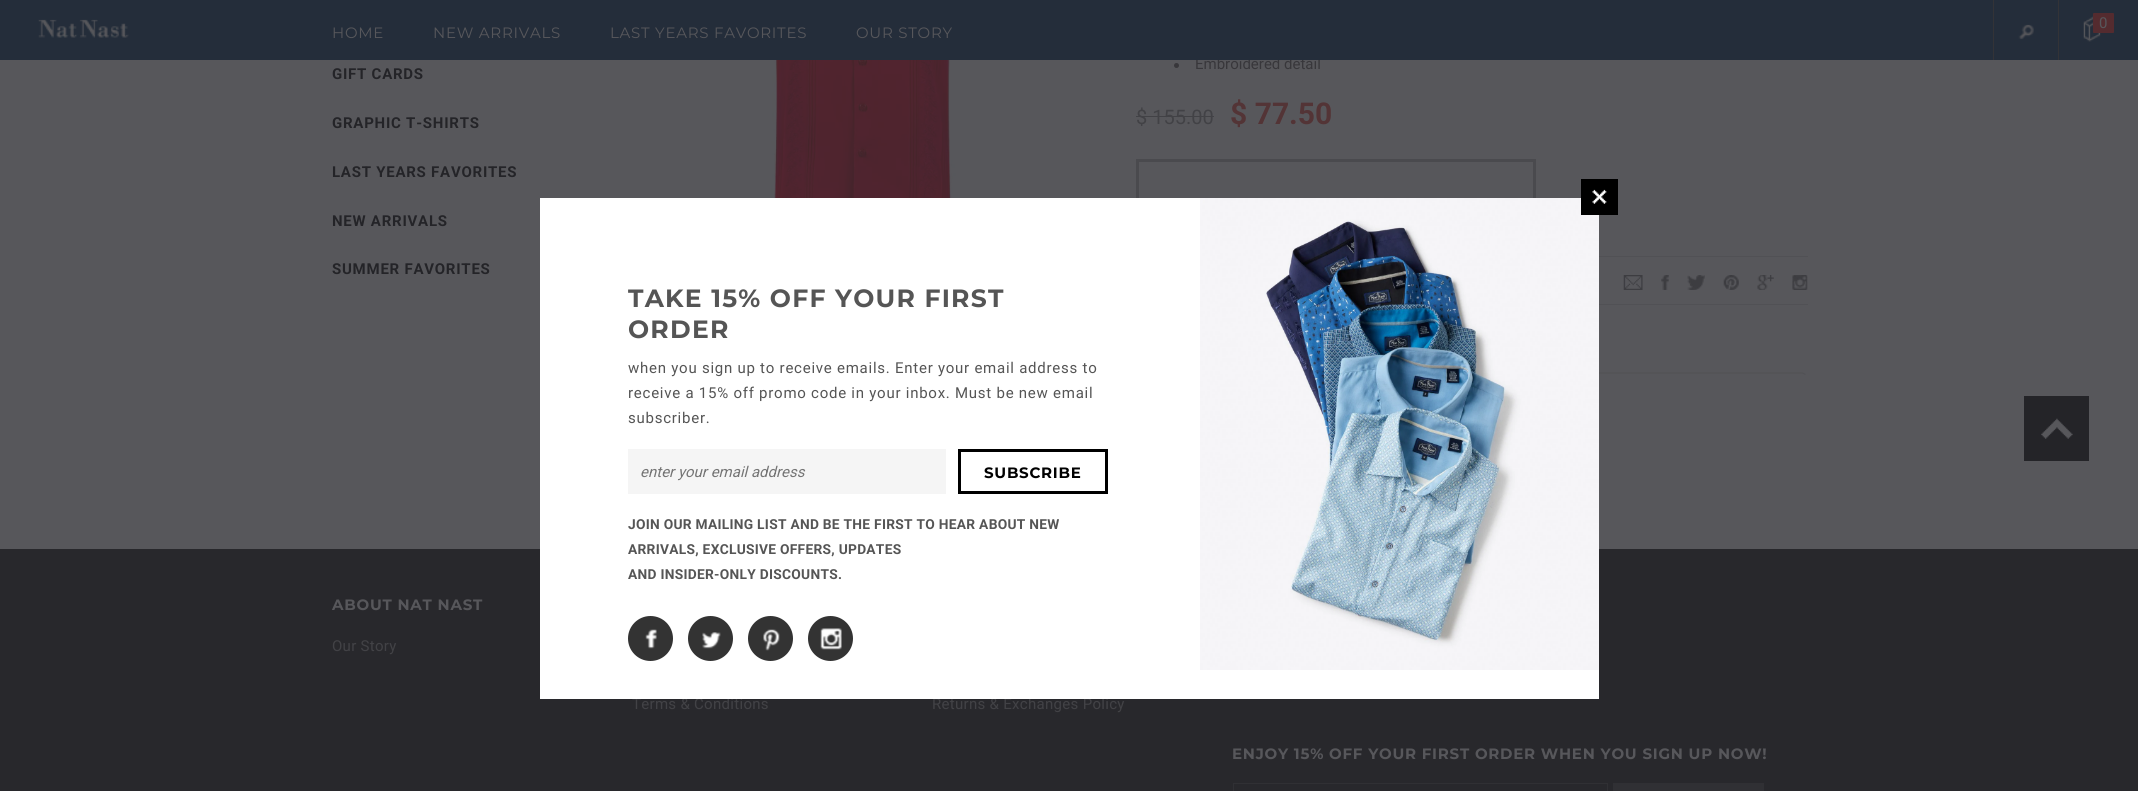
#include <cairo.h>
#include <math.h>
#include <stddef.h>


static void set_color(cairo_t *cr, unsigned color) {
    cairo_set_source_rgb(cr, (color >> 16) / 255.0, (color >> 8 & 255) / 255.0, (color & 255) / 255.0);
}

static void draw_text(cairo_t *cr, double x, double y, const char *s, const char *family, double size, int italic, int bold, unsigned color) {
    cairo_select_font_face(cr, family, italic ? CAIRO_FONT_SLANT_ITALIC : CAIRO_FONT_SLANT_NORMAL,
        bold ? CAIRO_FONT_WEIGHT_BOLD : CAIRO_FONT_WEIGHT_NORMAL);
    cairo_set_font_size(cr, size);
    set_color(cr, color);
    cairo_move_to(cr, x, y);
    cairo_show_text(cr, s);
}

static void draw_spaced(cairo_t *cr, double x, double y, const char *s, double letter, double word) {
    cairo_move_to(cr, x, y);
    while (*s) {
        char ch[5] = {0};
        int n = 0;
        do ch[n++] = *s++; while ((*s & 0xC0) == 0x80);
        cairo_show_text(cr, ch);
        cairo_rel_move_to(cr, letter + word * (*ch == ' '), 0);
    }
}

static void fill_rect(cairo_t *cr, double x, double y, double w, double h, unsigned color) {
    set_color(cr, color);
    cairo_rectangle(cr, x, y, w, h);
    cairo_fill(cr);
}

static void rounded_rect(cairo_t *cr, double x, double y, double w, double h, double r) {
    cairo_new_sub_path(cr);
    cairo_arc(cr, x + w - r, y + h - r, r, 0, M_PI / 2);
    cairo_arc(cr, x + r, y + h - r, r, M_PI / 2, M_PI);
    cairo_arc(cr, x + r, y + r, r, M_PI, 1.5 * M_PI);
    cairo_arc(cr, x + w - r, y + r, r, 1.5 * M_PI, 2 * M_PI);
    cairo_close_path(cr);
}

static void draw_image(cairo_t *cr, const char *path, double x, double y, double w, double h) {
    cairo_surface_t *image = cairo_image_surface_create_from_png(path);
    cairo_save(cr);
    cairo_set_source_surface(cr, image, x, y);
    cairo_rectangle(cr, x, y, w, h);
    cairo_fill(cr);
    cairo_restore(cr);
    cairo_surface_destroy(image);
}

int main(void) {
    cairo_surface_t *surface = cairo_image_surface_create(CAIRO_FORMAT_RGB24, 2138, 791);
    cairo_t *cr = cairo_create(surface);
    cairo_font_options_t *options = cairo_font_options_create();
    cairo_font_options_set_hint_metrics(options, CAIRO_HINT_METRICS_OFF);
    cairo_font_options_set_hint_style(options, CAIRO_HINT_STYLE_NONE);
    cairo_set_font_options(cr, options);
    cairo_set_miter_limit(cr, 4);
    set_color(cr, 0x57575B);
    cairo_paint(cr);
    draw_text(cr, 1195, 69, "Embroidered detail", "Roboto", 15, 0, 0, 0x38373B);
    fill_rect(cr, 0, 0, 2138, 60, 0x242D3A);
    draw_image(cr, "assets/img1.png", 2018, 24, 16, 16);
    fill_rect(cr, 1993, 0, 1, 60, 0x333337);
    draw_image(cr, "assets/img2.png", 2083, 16, 18, 26);
    fill_rect(cr, 2058, 0, 1, 60, 0x333337);
    set_color(cr, 0x542B2F);
    rounded_rect(cr, 2093, 13, 21, 20, 1);
    cairo_fill(cr);
    set_color(cr, 0x57575B);
    draw_spaced(cr, 2099, 28, "0", 0.3, 0);
    draw_image(cr, "assets/img3.png", 38, 19, 91, 19);
    cairo_select_font_face(cr, "Montserrat", CAIRO_FONT_SLANT_NORMAL, CAIRO_FONT_WEIGHT_NORMAL);
    draw_spaced(cr, 332, 38, "HOME", 0.75, 0);
    draw_spaced(cr, 433, 38, "NEW ARRIVALS", 0.75, 0);
    draw_spaced(cr, 610, 38, "LAST YEARS FAVORITES", 0.75, 0);
    draw_spaced(cr, 856, 38, "OUR STORY", 0.75, 0);
    cairo_select_font_face(cr, "Roboto", CAIRO_FONT_SLANT_NORMAL, CAIRO_FONT_WEIGHT_BOLD);
    set_color(cr, 0x242428);
    draw_spaced(cr, 332, 79, "GIFT CARDS", 0.75, 0);
    draw_spaced(cr, 332, 128, "GRAPHIC T-SHIRTS", 0.75, 0);
    draw_spaced(cr, 332, 177, "LAST YEARS FAVORITES", 0.75, 0);
    draw_spaced(cr, 332, 226, "NEW ARRIVALS", 0.75, 0);
    draw_spaced(cr, 332, 274, "SUMMER FAVORITES", 0.75, 0);
    draw_image(cr, "assets/img4.png", 705, 60, 316, 138);
    set_color(cr, 0x38373B);
    cairo_arc(cr, 1176.5, 65.5, 2.5, 0, 2 * M_PI);
    cairo_fill(cr);
    draw_text(cr, 1136, 124, "$ 155.00", "Roboto", 20, 0, 0, 0x424246);
    fill_rect(cr, 1136, 116, 78, 1, 0x424246);
    draw_text(cr, 1230, 124, "$ 77.50", "Roboto", 30, 0, 1, 0x533436);
    cairo_rectangle(cr, 1137.5, 160.5, 397, 57);
    set_color(cr, 0x4A4A4E);
    cairo_set_line_width(cr, 3);
    cairo_stroke(cr);
    fill_rect(cr, 1599, 256, 209, 1, 0x515155);
    fill_rect(cr, 1599, 304, 209, 1, 0x515155);
    draw_image(cr, "assets/img5.png", 1623, 275, 20, 15);
    draw_image(cr, "assets/img6.png", 1661, 275, 8, 15);
    draw_image(cr, "assets/img7.png", 1687, 275, 18, 15);
    draw_image(cr, "assets/img8.png", 1723, 275, 16, 15);
    draw_image(cr, "assets/img9.png", 1757, 275, 17, 15);
    draw_image(cr, "assets/img10.png", 1792, 275, 16, 15);
    cairo_new_path(cr);
    cairo_move_to(cr, 1138, 374.5);
    cairo_line_to(cr, 1141, 373);
    cairo_line_to(cr, 1802.5, 373);
    cairo_line_to(cr, 1805.5, 374.5);
    cairo_set_line_width(cr, 1.2);
    cairo_stroke(cr);
    fill_rect(cr, 0, 549, 2138, 242, 0x28282C);
    cairo_select_font_face(cr, "Roboto", CAIRO_FONT_SLANT_NORMAL, CAIRO_FONT_WEIGHT_NORMAL);
    cairo_set_font_size(cr, 15);
    set_color(cr, 0x424246);
    draw_spaced(cr, 632, 709, "Terms & Conditions", 0.3, 0);
    draw_spaced(cr, 932, 709, "Returns & Exchanges Policy", 0.3, 0);
    fill_rect(cr, 540, 198, 1059, 501, 0xFFFFFF);
    cairo_select_font_face(cr, "Montserrat", CAIRO_FONT_SLANT_NORMAL, CAIRO_FONT_WEIGHT_BOLD);
    cairo_set_font_size(cr, 25);
    set_color(cr, 0x555555);
    draw_spaced(cr, 628, 307, "TAKE 15% OFF YOUR FIRST", 1.25, 0);
    draw_spaced(cr, 628, 338, "ORDER", 1.25, 0);
    cairo_select_font_face(cr, "Roboto", CAIRO_FONT_SLANT_NORMAL, CAIRO_FONT_WEIGHT_NORMAL);
    cairo_set_font_size(cr, 15);
    draw_spaced(cr, 628, 373, "when you sign up to receive emails. Enter your email address to", 0.75, 0);
    draw_spaced(cr, 628, 398, "receive a 15% off promo code in your inbox. Must be new email", 0.75, 0);
    draw_spaced(cr, 628, 423, "subscriber.", 0.75, 0);
    fill_rect(cr, 628, 449, 318, 45, 0xF5F5F5);
    draw_text(cr, 640, 477, "enter your email address", "Roboto", 15, 1, 0, 0x757575);
    cairo_rectangle(cr, 959.5, 450.5, 147, 42);
    set_color(cr, 0x000000);
    cairo_set_line_width(cr, 3);
    cairo_stroke(cr);
    cairo_select_font_face(cr, "Montserrat", CAIRO_FONT_SLANT_NORMAL, CAIRO_FONT_WEIGHT_BOLD);
    draw_spaced(cr, 984, 478, "SUBSCRIBE", 0.75, 0);
    cairo_select_font_face(cr, "Roboto", CAIRO_FONT_SLANT_NORMAL, CAIRO_FONT_WEIGHT_BOLD);
    cairo_set_font_size(cr, 13.75);
    set_color(cr, 0x555555);
    draw_spaced(cr, 628, 529, "JOIN OUR MAILING LIST AND BE THE FIRST TO HEAR ABOUT NEW", 0.28, 0);
    draw_spaced(cr, 628, 554, "ARRIVALS, EXCLUSIVE OFFERS, UPDATES", 0.28, 0);
    draw_spaced(cr, 628, 579, "AND INSIDER-ONLY DISCOUNTS.", 0.28, 0);
    set_color(cr, 0x333333);
    cairo_new_path(cr);
    cairo_arc(cr, 650.5, 638.5, 22.5, 0, 2 * M_PI);
    cairo_fill(cr);
    draw_image(cr, "assets/img11.png", 645, 629, 12, 20);
    cairo_arc(cr, 710.5, 638.5, 22.5, 0, 2 * M_PI);
    cairo_fill(cr);
    draw_image(cr, "assets/img12.png", 702, 632, 19, 17);
    cairo_arc(cr, 770.5, 638.5, 22.5, 0, 2 * M_PI);
    cairo_fill(cr);
    draw_image(cr, "assets/img13.png", 763, 629, 17, 22);
    cairo_arc(cr, 830.5, 638.5, 22.5, 0, 2 * M_PI);
    cairo_fill(cr);
    draw_image(cr, "assets/img14.png", 820, 628, 22, 22);
    draw_image(cr, "assets/img15.png", 1200, 198, 399, 472);
    fill_rect(cr, 1581, 179, 37, 36, 0x000000);
    draw_image(cr, "assets/img16.png", 1592, 189, 15, 15);
    fill_rect(cr, 2024, 396, 65, 65, 0x242428);
    draw_image(cr, "assets/img17.png", 2041, 418, 32, 21);
    cairo_select_font_face(cr, "Montserrat", CAIRO_FONT_SLANT_NORMAL, CAIRO_FONT_WEIGHT_BOLD);
    cairo_set_font_size(cr, 15);
    set_color(cr, 0x57575B);
    draw_spaced(cr, 332, 610, "ABOUT NAT NAST", 0.75, 0);
    cairo_select_font_face(cr, "Roboto", CAIRO_FONT_SLANT_NORMAL, CAIRO_FONT_WEIGHT_NORMAL);
    set_color(cr, 0x424246);
    draw_spaced(cr, 332, 651, "Our Story", 0.3, 0);
    cairo_select_font_face(cr, "Montserrat", CAIRO_FONT_SLANT_NORMAL, CAIRO_FONT_WEIGHT_BOLD);
    set_color(cr, 0x57575B);
    draw_spaced(cr, 1232, 759, "ENJOY 15% OFF YOUR FIRST ORDER WHEN YOU SIGN UP NOW!", 0.75, 0);
    cairo_rectangle(cr, 1233.5, 783.5, 374, 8);
    set_color(cr, 0x303034);
    cairo_set_line_width(cr, 1);
    cairo_stroke(cr);
    fill_rect(cr, 1613, 783, 151, 8, 0x303034);
    cairo_surface_write_to_png(surface, "output.png");
    cairo_font_options_destroy(options);
    cairo_destroy(cr);
    cairo_surface_destroy(surface);
    return 0;
}
